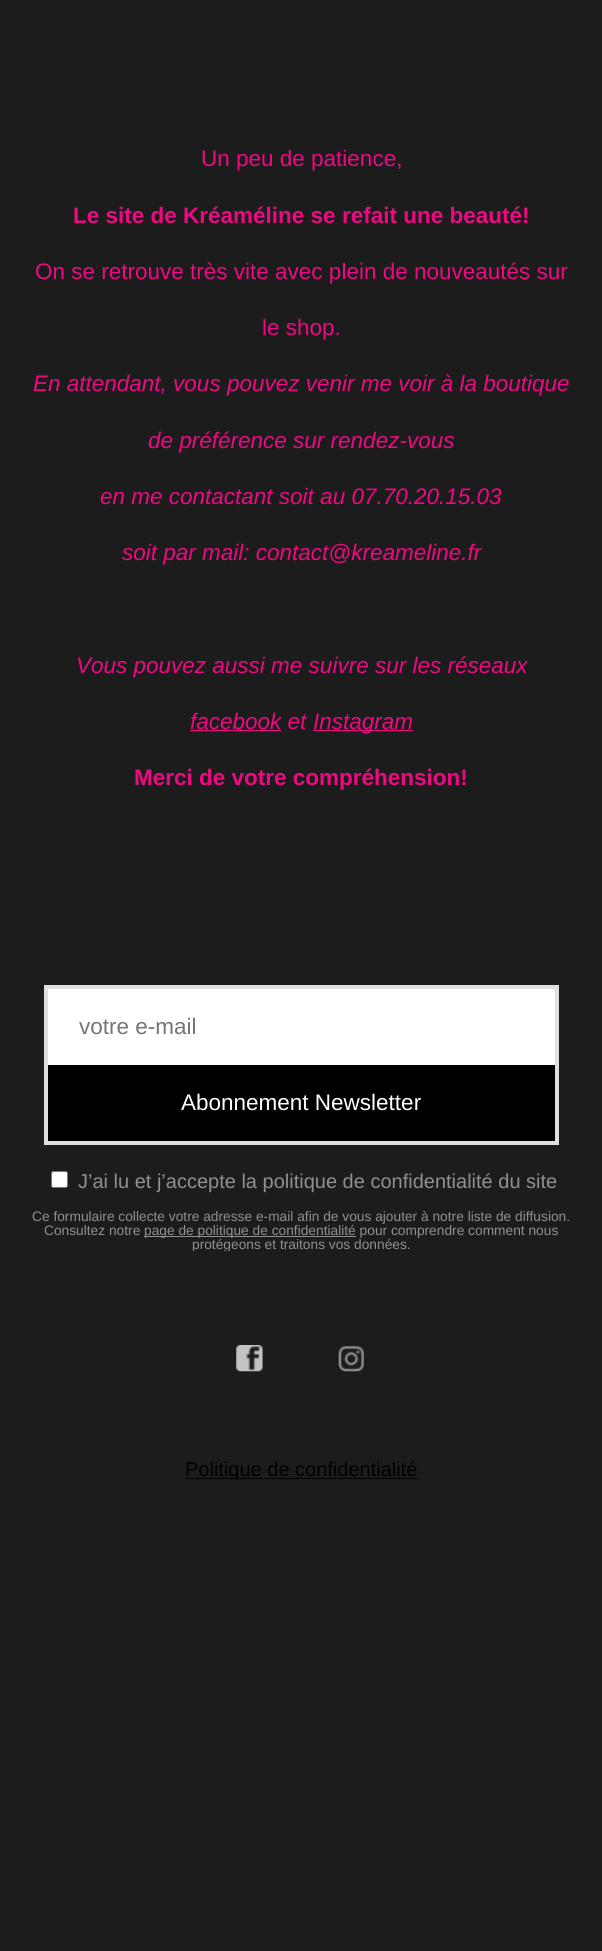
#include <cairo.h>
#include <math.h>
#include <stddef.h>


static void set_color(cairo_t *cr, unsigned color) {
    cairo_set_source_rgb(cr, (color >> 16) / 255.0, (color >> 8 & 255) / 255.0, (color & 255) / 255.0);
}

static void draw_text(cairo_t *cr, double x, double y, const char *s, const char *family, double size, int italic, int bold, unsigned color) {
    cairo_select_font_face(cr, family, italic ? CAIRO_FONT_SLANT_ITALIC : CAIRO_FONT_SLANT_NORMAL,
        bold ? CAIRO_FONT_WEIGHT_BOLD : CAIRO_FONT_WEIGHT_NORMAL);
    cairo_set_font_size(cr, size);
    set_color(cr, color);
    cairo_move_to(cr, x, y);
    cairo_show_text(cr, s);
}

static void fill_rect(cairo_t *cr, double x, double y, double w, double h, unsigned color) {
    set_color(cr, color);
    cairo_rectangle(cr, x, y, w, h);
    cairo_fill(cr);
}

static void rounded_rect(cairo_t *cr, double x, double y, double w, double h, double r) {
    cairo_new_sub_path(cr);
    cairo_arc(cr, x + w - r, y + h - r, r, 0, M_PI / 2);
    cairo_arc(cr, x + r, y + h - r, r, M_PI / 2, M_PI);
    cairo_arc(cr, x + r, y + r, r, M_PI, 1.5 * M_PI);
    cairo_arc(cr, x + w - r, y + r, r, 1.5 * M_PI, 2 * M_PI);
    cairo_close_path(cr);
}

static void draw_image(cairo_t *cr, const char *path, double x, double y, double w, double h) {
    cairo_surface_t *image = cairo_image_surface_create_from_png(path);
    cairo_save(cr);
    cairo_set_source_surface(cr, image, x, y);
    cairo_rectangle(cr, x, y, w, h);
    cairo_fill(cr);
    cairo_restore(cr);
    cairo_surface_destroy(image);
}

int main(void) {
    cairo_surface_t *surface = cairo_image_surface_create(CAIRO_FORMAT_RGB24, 602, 1951);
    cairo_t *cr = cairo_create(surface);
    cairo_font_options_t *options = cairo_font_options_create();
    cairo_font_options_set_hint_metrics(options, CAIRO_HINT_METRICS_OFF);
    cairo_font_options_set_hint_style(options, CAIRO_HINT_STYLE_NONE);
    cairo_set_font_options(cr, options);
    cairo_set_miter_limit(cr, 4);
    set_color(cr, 0x1C1C1C);
    cairo_paint(cr);
    draw_text(cr, 201, 166, "Un peu de patience,", "Liberation Sans", 22.5, 0, 0, 0xED0982);
    draw_text(cr, 73, 223, "Le site de Kréaméline se refait une beauté!", "Liberation Sans", 22.5, 0, 1, 0xED0982);
    draw_text(cr, 35, 279, "On se retrouve très vite avec plein de nouveautés sur", "Liberation Sans", 22.5, 0, 0, 0xED0982);
    draw_text(cr, 262, 335, "le shop.", "Liberation Sans", 22.5, 0, 0, 0xED0982);
    draw_text(cr, 33, 391, "En attendant, vous pouvez venir me voir à la boutique", "Liberation Sans", 22.5, 1, 0, 0xED0982);
    draw_text(cr, 148, 448, "de préférence sur rendez-vous", "Liberation Sans", 22.5, 1, 0, 0xED0982);
    draw_text(cr, 100, 504, "en me contactant soit au 07.70.20.15.03", "Liberation Sans", 22.5, 1, 0, 0xED0982);
    draw_text(cr, 122, 560, "soit par mail: contact@kreameline.fr", "Liberation Sans", 22.5, 1, 0, 0xED0982);
    draw_text(cr, 76, 673, "Vous pouvez aussi me suivre sur les réseaux", "Liberation Sans", 22.5, 1, 0, 0xED0982);
    draw_text(cr, 190, 729, "facebook et", "Liberation Sans", 22.5, 1, 0, 0xED0982);
    fill_rect(cr, 190, 730, 91, 1, 0xED0982);
    fill_rect(cr, 313, 730, 100, 1, 0xED0982);
    draw_text(cr, 313, 729, "Instagram", "Liberation Sans", 22.5, 1, 0, 0xED0982);
    draw_text(cr, 134, 785, "Merci de votre compréhension!", "Liberation Sans", 22.5, 0, 1, 0xED0982);
    fill_rect(cr, 48, 989, 507, 76, 0xFFFFFF);
    cairo_rectangle(cr, 46, 987, 511, 156);
    set_color(cr, 0xE0E0E0);
    cairo_set_line_width(cr, 4);
    cairo_stroke(cr);
    draw_text(cr, 79, 1034, "votre e-mail", "Liberation Sans", 22.5, 0, 0, 0x757575);
    fill_rect(cr, 48, 1065, 507, 76, 0x000000);
    draw_text(cr, 181, 1110, "Abonnement Newsletter", "Liberation Sans", 22.5, 0, 0, 0xFFFFFF);
    rounded_rect(cr, 51.5, 1171.5, 16, 16, 2);
    cairo_fill_preserve(cr);
    set_color(cr, 0x767676);
    cairo_set_line_width(cr, 1);
    cairo_stroke(cr);
    draw_text(cr, 78, 1188, "J’ai lu et j’accepte la politique de confidentialité du site", "Liberation Sans", 20, 0, 0, 0x909090);
    draw_text(cr, 32, 1221, "Ce formulaire collecte votre adresse e-mail afin de vous ajouter à notre liste de diffusion.", "Liberation Sans", 13.75, 0, 0, 0x909090);
    draw_text(cr, 44, 1235, "Consultez notre", "Liberation Sans", 13.75, 0, 0, 0x909090);
    fill_rect(cr, 144, 1236, 212, 1, 0x909090);
    draw_text(cr, 144, 1235, "page de politique de confidentialité pour comprendre comment nous", "Liberation Sans", 13.75, 0, 0, 0x909090);
    cairo_save(cr);
    cairo_rectangle(cr, 30, 985, 543, 266);
    cairo_clip(cr);
    draw_text(cr, 192, 1249, "protégeons et traitons vos données.", "Liberation Sans", 13.75, 0, 0, 0x909090);
    cairo_restore(cr);
    draw_image(cr, "assets/img1.png", 236, 1345, 27, 27);
    draw_image(cr, "assets/img2.png", 338, 1346, 26, 26);
    fill_rect(cr, 185, 1478, 233, 1, 0x000000);
    draw_text(cr, 185, 1476, "Politique de confidentialité", "Liberation Sans", 20, 0, 0, 0x000000);
    cairo_surface_write_to_png(surface, "output.png");
    cairo_font_options_destroy(options);
    cairo_destroy(cr);
    cairo_surface_destroy(surface);
    return 0;
}
